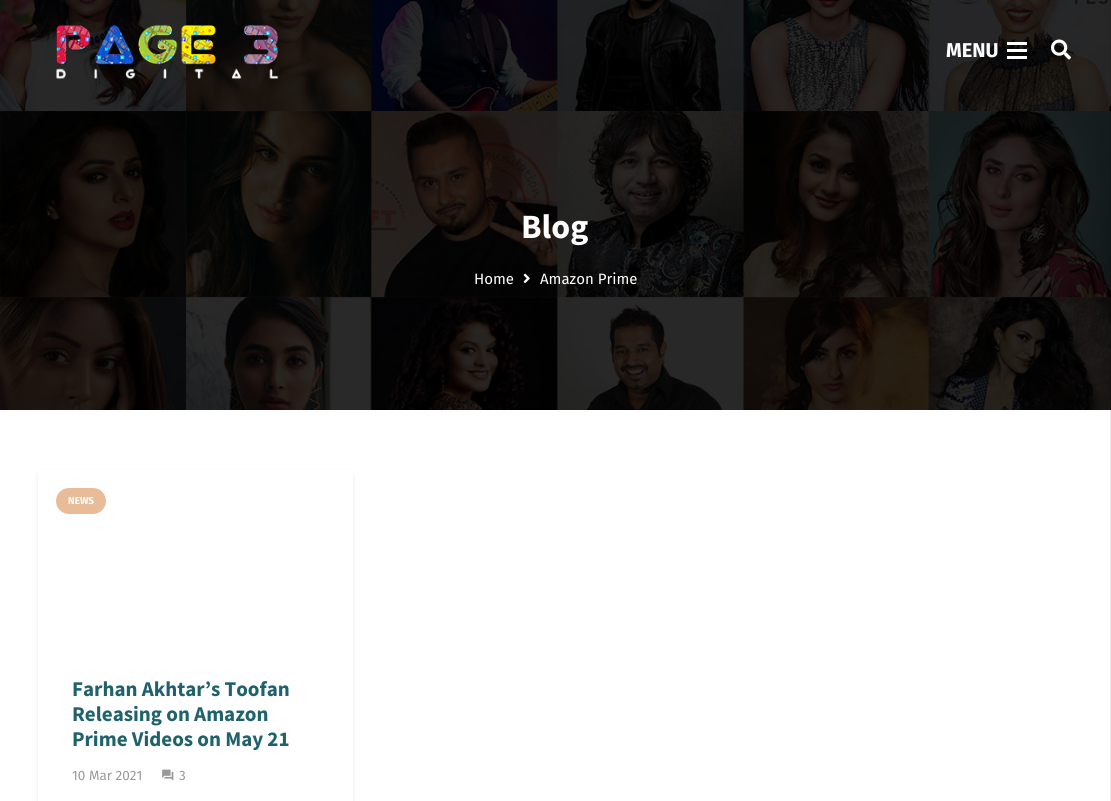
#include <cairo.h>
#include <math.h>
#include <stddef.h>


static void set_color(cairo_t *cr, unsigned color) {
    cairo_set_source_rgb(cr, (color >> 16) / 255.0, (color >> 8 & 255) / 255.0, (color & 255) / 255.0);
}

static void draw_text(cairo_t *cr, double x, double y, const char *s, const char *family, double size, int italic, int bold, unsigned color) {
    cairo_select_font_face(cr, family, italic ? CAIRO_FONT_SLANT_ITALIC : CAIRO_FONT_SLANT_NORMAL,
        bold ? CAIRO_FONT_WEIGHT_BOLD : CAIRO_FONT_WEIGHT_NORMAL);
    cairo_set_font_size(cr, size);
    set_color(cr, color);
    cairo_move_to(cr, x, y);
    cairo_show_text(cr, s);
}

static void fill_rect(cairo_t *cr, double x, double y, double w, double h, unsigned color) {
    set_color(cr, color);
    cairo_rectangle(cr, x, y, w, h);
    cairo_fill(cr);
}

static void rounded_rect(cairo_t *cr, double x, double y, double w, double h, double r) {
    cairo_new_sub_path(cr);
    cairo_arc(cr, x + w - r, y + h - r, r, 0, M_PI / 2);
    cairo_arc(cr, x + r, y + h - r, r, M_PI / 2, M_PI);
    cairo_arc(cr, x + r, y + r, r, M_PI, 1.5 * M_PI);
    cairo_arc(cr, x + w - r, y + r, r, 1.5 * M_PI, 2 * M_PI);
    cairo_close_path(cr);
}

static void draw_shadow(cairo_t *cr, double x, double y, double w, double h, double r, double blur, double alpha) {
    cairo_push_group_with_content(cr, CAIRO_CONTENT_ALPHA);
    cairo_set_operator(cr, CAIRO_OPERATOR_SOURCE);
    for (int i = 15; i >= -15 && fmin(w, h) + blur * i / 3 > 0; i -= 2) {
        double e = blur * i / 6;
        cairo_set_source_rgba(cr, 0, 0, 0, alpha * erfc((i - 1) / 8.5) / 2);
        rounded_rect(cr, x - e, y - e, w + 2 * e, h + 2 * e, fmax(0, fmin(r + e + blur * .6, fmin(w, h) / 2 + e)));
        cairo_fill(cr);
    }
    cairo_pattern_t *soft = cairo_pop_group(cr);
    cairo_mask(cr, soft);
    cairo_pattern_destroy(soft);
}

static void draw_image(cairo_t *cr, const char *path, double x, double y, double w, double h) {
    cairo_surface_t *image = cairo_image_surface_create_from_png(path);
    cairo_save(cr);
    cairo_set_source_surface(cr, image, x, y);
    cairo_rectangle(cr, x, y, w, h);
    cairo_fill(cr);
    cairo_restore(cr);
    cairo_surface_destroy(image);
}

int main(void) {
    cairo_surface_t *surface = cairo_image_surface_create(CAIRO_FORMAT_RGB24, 1111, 801);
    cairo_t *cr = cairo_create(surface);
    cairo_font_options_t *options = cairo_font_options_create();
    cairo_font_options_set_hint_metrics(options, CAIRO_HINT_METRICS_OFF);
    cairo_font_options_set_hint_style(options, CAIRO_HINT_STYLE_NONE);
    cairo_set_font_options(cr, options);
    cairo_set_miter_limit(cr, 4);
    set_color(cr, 0xFFFFFF);
    cairo_paint(cr);
    draw_image(cr, "assets/img3.png", 0, 0, 1111, 410);
    draw_image(cr, "assets/img1.png", 56, 25, 223, 54);
    draw_text(cr, 946, 57, "MENU", "Fira Sans", 20, 0, 1, 0xFFFFFF);
    fill_rect(cr, 1007, 49, 20, 3, 0xFFFFFF);
    fill_rect(cr, 1007, 42, 20, 3, 0xFFFFFF);
    fill_rect(cr, 1007, 56, 20, 3, 0xFFFFFF);
    cairo_set_source_rgba(cr, 0, 0, 0, 0.08);
    cairo_rectangle(cr, 1110, 0, 1, 801);
    cairo_fill(cr);
    draw_image(cr, "assets/img2.png", 1051, 39, 20, 21);
    draw_text(cr, 521, 238, "Blog", "Source Sans Pro", 34, 0, 1, 0xFFFFFF);
    draw_text(cr, 474, 284, "Home", "Fira Sans", 15, 0, 0, 0xFFFFFF);
    draw_image(cr, "assets/img4.png", 523, 273, 7, 10);
    draw_text(cr, 540, 284, "Amazon Prime", "Fira Sans", 15, 0, 0, 0xFFFFFF);
    set_color(cr, 0x000000);
    draw_shadow(cr, 38, 472, 315, 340, 5, 2, 0.1);
    set_color(cr, 0xFFFFFF);
    rounded_rect(cr, 38, 470, 315, 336, 5);
    cairo_fill(cr);
    set_color(cr, 0xE9BC99);
    rounded_rect(cr, 56, 488, 50, 26, 13);
    cairo_fill(cr);
    draw_text(cr, 68, 504, "NEWS", "Fira Sans", 10, 0, 1, 0xFFFFFF);
    draw_text(cr, 72, 696, "Farhan Akhtar’s Toofan", "Source Sans Pro", 21, 0, 1, 0x1F626E);
    draw_text(cr, 72, 721, "Releasing on Amazon", "Source Sans Pro", 21, 0, 1, 0x1F626E);
    draw_text(cr, 72, 746, "Prime Videos on May 21", "Source Sans Pro", 21, 0, 1, 0x1F626E);
    draw_text(cr, 72, 780, "10 Mar 2021", "Fira Sans", 13.5, 0, 0, 0x999999);
    draw_image(cr, "assets/img5.png", 162, 769, 12, 12);
    draw_text(cr, 179, 780, "3", "Fira Sans", 13.5, 0, 0, 0x999999);
    cairo_surface_write_to_png(surface, "output.png");
    cairo_font_options_destroy(options);
    cairo_destroy(cr);
    cairo_surface_destroy(surface);
    return 0;
}
